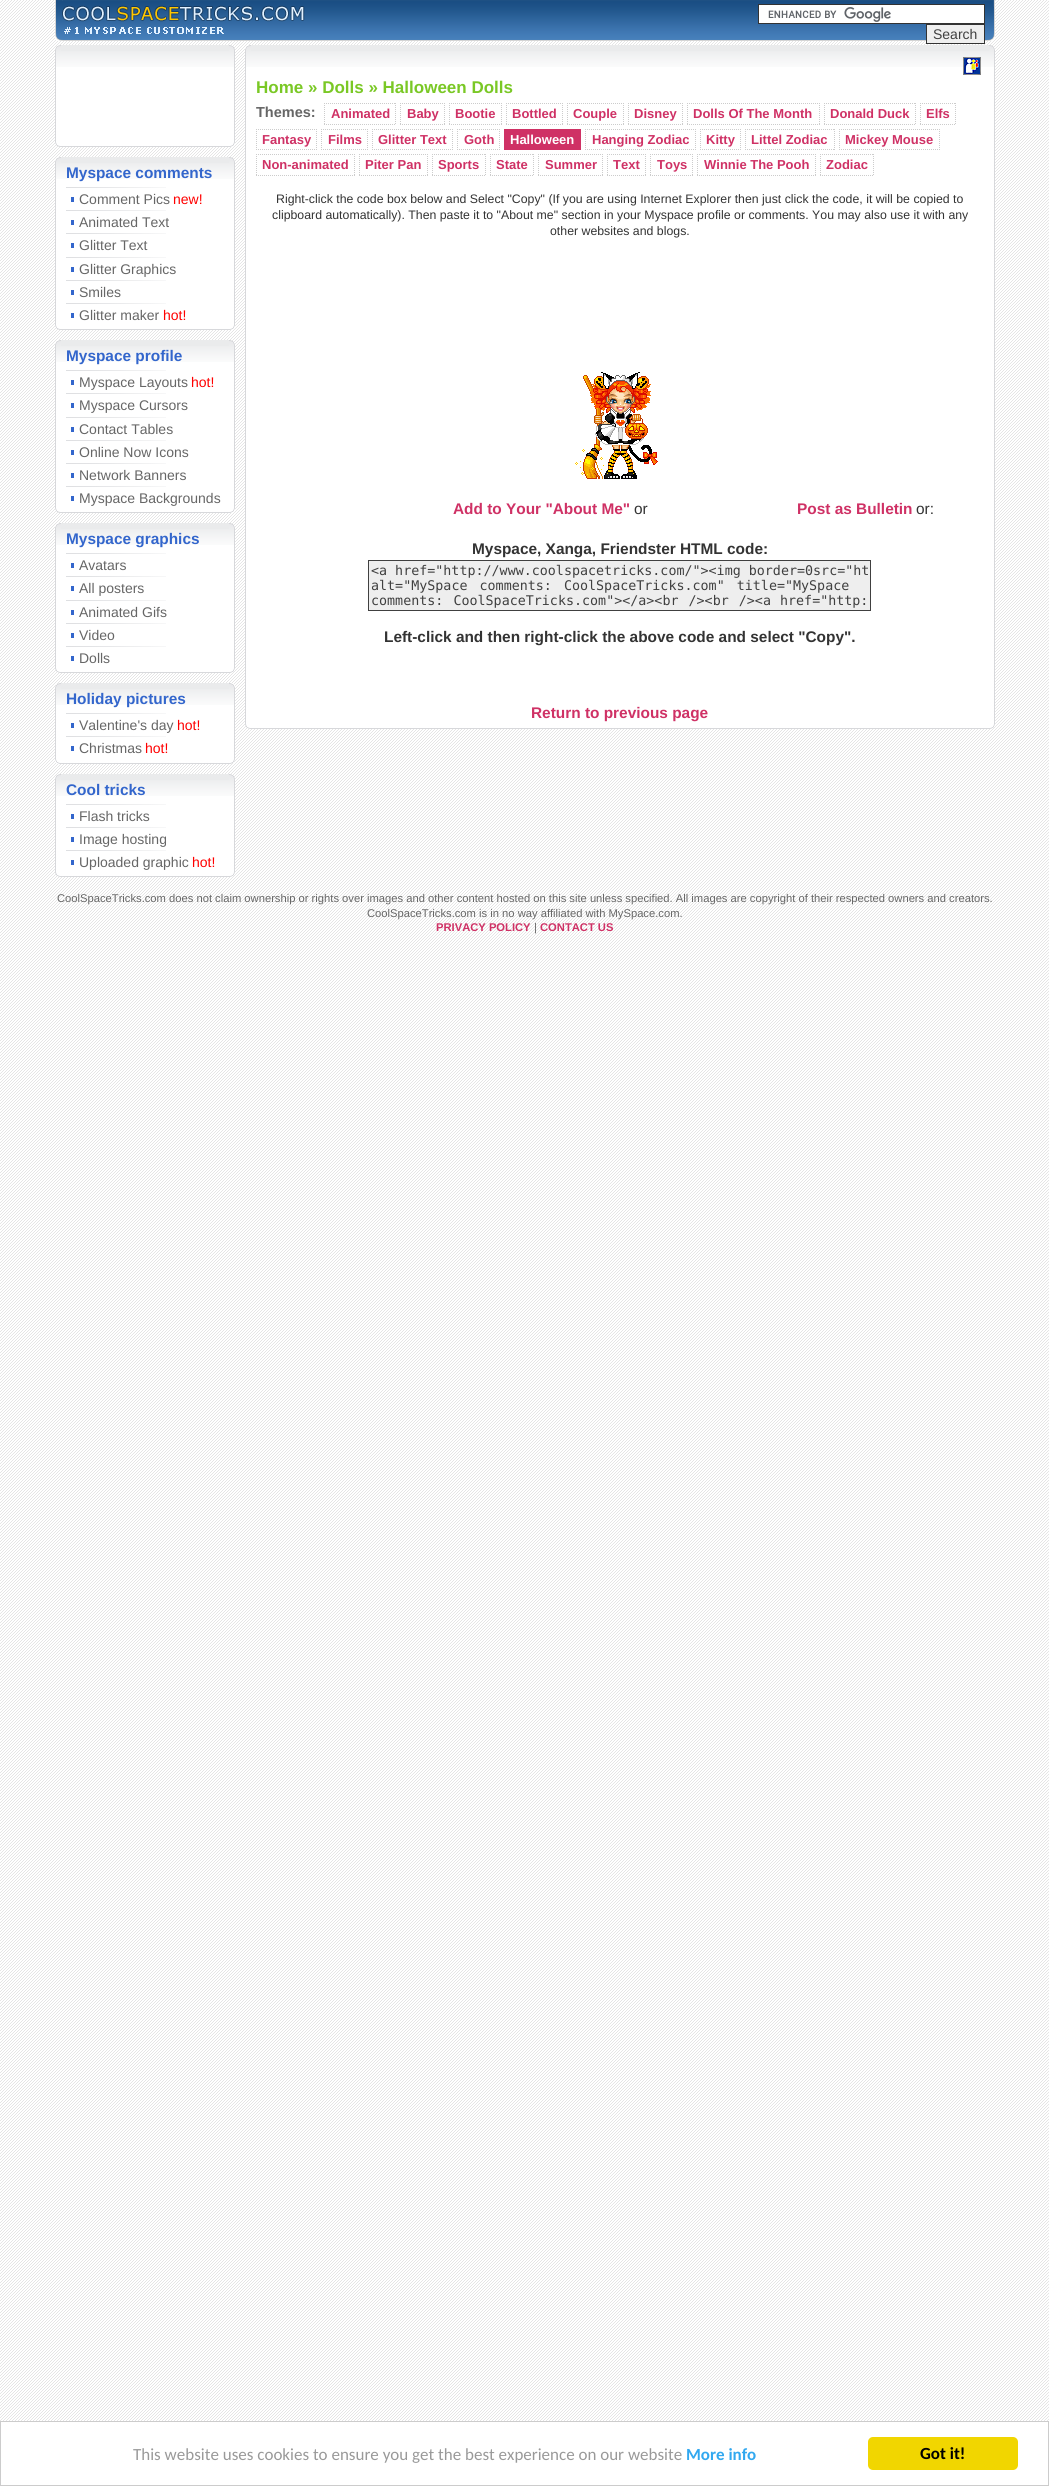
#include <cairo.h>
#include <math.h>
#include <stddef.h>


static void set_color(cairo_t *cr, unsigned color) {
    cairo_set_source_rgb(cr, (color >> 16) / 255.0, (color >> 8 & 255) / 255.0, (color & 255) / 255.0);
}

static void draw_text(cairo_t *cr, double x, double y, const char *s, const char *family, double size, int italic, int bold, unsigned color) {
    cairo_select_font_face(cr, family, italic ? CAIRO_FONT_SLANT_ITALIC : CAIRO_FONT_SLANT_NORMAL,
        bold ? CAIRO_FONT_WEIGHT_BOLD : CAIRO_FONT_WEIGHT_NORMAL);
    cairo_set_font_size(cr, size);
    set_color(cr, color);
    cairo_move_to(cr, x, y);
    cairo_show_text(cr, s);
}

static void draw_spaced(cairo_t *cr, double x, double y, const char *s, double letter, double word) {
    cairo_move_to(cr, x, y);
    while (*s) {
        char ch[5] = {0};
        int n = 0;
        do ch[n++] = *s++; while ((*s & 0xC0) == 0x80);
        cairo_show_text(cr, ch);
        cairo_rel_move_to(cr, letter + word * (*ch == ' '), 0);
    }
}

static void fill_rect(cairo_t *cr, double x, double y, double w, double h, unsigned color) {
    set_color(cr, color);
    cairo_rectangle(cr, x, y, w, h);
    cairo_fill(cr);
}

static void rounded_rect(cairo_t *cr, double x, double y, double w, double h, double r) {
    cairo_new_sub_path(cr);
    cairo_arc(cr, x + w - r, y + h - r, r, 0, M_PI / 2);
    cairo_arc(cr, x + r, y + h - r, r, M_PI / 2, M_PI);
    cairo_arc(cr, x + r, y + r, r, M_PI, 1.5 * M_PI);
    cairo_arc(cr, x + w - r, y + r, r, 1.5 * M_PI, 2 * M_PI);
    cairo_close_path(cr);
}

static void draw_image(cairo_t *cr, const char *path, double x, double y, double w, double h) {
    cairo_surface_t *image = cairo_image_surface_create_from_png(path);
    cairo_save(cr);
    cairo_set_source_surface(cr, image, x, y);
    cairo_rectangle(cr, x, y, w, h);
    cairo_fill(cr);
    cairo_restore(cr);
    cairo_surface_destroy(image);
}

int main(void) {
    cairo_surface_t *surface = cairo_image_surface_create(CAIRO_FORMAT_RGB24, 1049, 2486);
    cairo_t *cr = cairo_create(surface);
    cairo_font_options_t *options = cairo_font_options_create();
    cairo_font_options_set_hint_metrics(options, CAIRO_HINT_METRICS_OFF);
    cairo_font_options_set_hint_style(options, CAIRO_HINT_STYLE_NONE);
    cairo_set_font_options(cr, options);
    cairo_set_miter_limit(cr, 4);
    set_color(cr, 0xFFFFFF);
    cairo_paint(cr);
    draw_image(cr, "assets/img1.png", 0, 0, 1049, 2421);
    draw_image(cr, "assets/img2.png", 55, 0, 940, 41);
    fill_rect(cr, 759, 5, 225, 18, 0xFFFFFF);
    draw_image(cr, "assets/img3.png", 768, 7, 123, 15);
    cairo_rectangle(cr, 758.5, 4.5, 226, 19);
    set_color(cr, 0x333333);
    cairo_set_line_width(cr, 1);
    cairo_stroke(cr);
    set_color(cr, 0xEFEFEF);
    cairo_rectangle(cr, 926.5, 24.5, 58, 19);
    cairo_fill_preserve(cr);
    set_color(cr, 0x333333);
    cairo_stroke(cr);
    draw_text(cr, 933, 39, "Search", "Liberation Sans", 14, 0, 0, 0x404040);
    draw_image(cr, "assets/img4.png", 55, 45, 6, 6);
    fill_rect(cr, 61, 45, 168, 6, 0xEAEBEC);
    draw_image(cr, "assets/img5.png", 229, 45, 6, 6);
    fill_rect(cr, 56, 67, 178, 74, 0xFFFFFF);
    fill_rect(cr, 55, 51, 1, 90, 0xD7D8DB);
    draw_image(cr, "assets/img6.png", 56, 51, 5, 16);
    draw_image(cr, "assets/img7.png", 61, 51, 168, 16);
    fill_rect(cr, 234, 51, 1, 90, 0xD7D8DB);
    draw_image(cr, "assets/img6.png", 229, 51, 5, 16);
    draw_image(cr, "assets/img8.png", 55, 141, 6, 6);
    fill_rect(cr, 61, 141, 168, 5, 0xFFFFFF);
    fill_rect(cr, 61, 146, 168, 1, 0xD7D8DB);
    draw_image(cr, "assets/img9.png", 229, 141, 6, 6);
    draw_image(cr, "assets/img10.png", 55, 157, 6, 6);
    fill_rect(cr, 61, 157, 168, 6, 0xEAEBEC);
    draw_image(cr, "assets/img11.png", 229, 157, 6, 6);
    fill_rect(cr, 56, 179, 178, 145, 0xFFFFFF);
    fill_rect(cr, 55, 163, 1, 161, 0xD7D8DB);
    draw_image(cr, "assets/img6.png", 56, 163, 5, 16);
    draw_image(cr, "assets/img7.png", 61, 163, 168, 16);
    draw_text(cr, 66, 178, "Myspace comments", "Liberation Sans", 15.4, 0, 1, 0x3366CC);
    draw_image(cr, "assets/img12.png", 66, 187, 100, 1);
    fill_rect(cr, 71, 197, 3, 5, 0x3366CC);
    draw_text(cr, 79, 204, "Comment Pics", "Liberation Sans", 14, 0, 0, 0x666666);
    draw_text(cr, 173, 204, "new!", "Liberation Sans", 14, 0, 0, 0xFF0000);
    draw_image(cr, "assets/img12.png", 66, 210, 100, 1);
    fill_rect(cr, 71, 220, 3, 5, 0x3366CC);
    draw_text(cr, 79, 227, "Animated Text", "Liberation Sans", 14, 0, 0, 0x666666);
    draw_image(cr, "assets/img12.png", 66, 233, 100, 1);
    fill_rect(cr, 71, 243, 3, 5, 0x3366CC);
    draw_text(cr, 79, 250, "Glitter Text", "Liberation Sans", 14, 0, 0, 0x666666);
    draw_image(cr, "assets/img12.png", 66, 257, 100, 1);
    fill_rect(cr, 71, 267, 3, 5, 0x3366CC);
    draw_text(cr, 79, 274, "Glitter Graphics", "Liberation Sans", 14, 0, 0, 0x666666);
    draw_image(cr, "assets/img12.png", 66, 280, 100, 1);
    fill_rect(cr, 71, 290, 3, 5, 0x3366CC);
    draw_text(cr, 79, 297, "Smiles", "Liberation Sans", 14, 0, 0, 0x666666);
    draw_image(cr, "assets/img12.png", 66, 303, 100, 1);
    fill_rect(cr, 71, 313, 3, 5, 0x3366CC);
    draw_text(cr, 79, 320, "Glitter maker", "Liberation Sans", 14, 0, 0, 0x666666);
    draw_text(cr, 163, 320, "hot!", "Liberation Sans", 14, 0, 0, 0xFF0000);
    fill_rect(cr, 234, 163, 1, 161, 0xD7D8DB);
    draw_image(cr, "assets/img6.png", 229, 163, 5, 16);
    draw_image(cr, "assets/img8.png", 55, 324, 6, 6);
    fill_rect(cr, 61, 324, 168, 5, 0xFFFFFF);
    fill_rect(cr, 61, 329, 168, 1, 0xD7D8DB);
    draw_image(cr, "assets/img9.png", 229, 324, 6, 6);
    draw_image(cr, "assets/img10.png", 55, 340, 6, 6);
    fill_rect(cr, 61, 340, 168, 6, 0xEAEBEC);
    draw_image(cr, "assets/img11.png", 229, 340, 6, 6);
    fill_rect(cr, 56, 362, 178, 145, 0xFFFFFF);
    fill_rect(cr, 55, 346, 1, 161, 0xD7D8DB);
    draw_image(cr, "assets/img6.png", 56, 346, 5, 16);
    draw_image(cr, "assets/img7.png", 61, 346, 168, 16);
    draw_text(cr, 66, 361, "Myspace profile", "Liberation Sans", 15.4, 0, 1, 0x3366CC);
    draw_image(cr, "assets/img12.png", 66, 370, 100, 1);
    fill_rect(cr, 71, 380, 3, 5, 0x3366CC);
    draw_text(cr, 79, 387, "Myspace Layouts", "Liberation Sans", 14, 0, 0, 0x666666);
    draw_text(cr, 191, 387, "hot!", "Liberation Sans", 14, 0, 0, 0xFF0000);
    draw_image(cr, "assets/img12.png", 66, 393, 100, 1);
    fill_rect(cr, 71, 403, 3, 5, 0x3366CC);
    draw_text(cr, 79, 410, "Myspace Cursors", "Liberation Sans", 14, 0, 0, 0x666666);
    draw_image(cr, "assets/img12.png", 66, 417, 100, 1);
    fill_rect(cr, 71, 427, 3, 5, 0x3366CC);
    draw_text(cr, 79, 434, "Contact Tables", "Liberation Sans", 14, 0, 0, 0x666666);
    draw_image(cr, "assets/img12.png", 66, 440, 100, 1);
    fill_rect(cr, 71, 450, 3, 5, 0x3366CC);
    draw_text(cr, 79, 457, "Online Now Icons", "Liberation Sans", 14, 0, 0, 0x666666);
    draw_image(cr, "assets/img12.png", 66, 463, 100, 1);
    fill_rect(cr, 71, 473, 3, 5, 0x3366CC);
    draw_text(cr, 79, 480, "Network Banners", "Liberation Sans", 14, 0, 0, 0x666666);
    draw_image(cr, "assets/img12.png", 66, 486, 100, 1);
    fill_rect(cr, 71, 496, 3, 5, 0x3366CC);
    draw_text(cr, 79, 503, "Myspace Backgrounds", "Liberation Sans", 14, 0, 0, 0x666666);
    fill_rect(cr, 234, 346, 1, 161, 0xD7D8DB);
    draw_image(cr, "assets/img6.png", 229, 346, 5, 16);
    draw_image(cr, "assets/img8.png", 55, 507, 6, 6);
    fill_rect(cr, 61, 507, 168, 5, 0xFFFFFF);
    fill_rect(cr, 61, 512, 168, 1, 0xD7D8DB);
    draw_image(cr, "assets/img9.png", 229, 507, 6, 6);
    draw_image(cr, "assets/img10.png", 55, 523, 6, 6);
    fill_rect(cr, 61, 523, 168, 6, 0xEAEBEC);
    draw_image(cr, "assets/img11.png", 229, 523, 6, 6);
    fill_rect(cr, 56, 545, 178, 122, 0xFFFFFF);
    fill_rect(cr, 55, 529, 1, 138, 0xD7D8DB);
    draw_image(cr, "assets/img6.png", 56, 529, 5, 16);
    draw_image(cr, "assets/img7.png", 61, 529, 168, 16);
    draw_text(cr, 66, 544, "Myspace graphics", "Liberation Sans", 15.4, 0, 1, 0x3366CC);
    draw_image(cr, "assets/img12.png", 66, 553, 100, 1);
    fill_rect(cr, 71, 563, 3, 5, 0x3366CC);
    draw_text(cr, 79, 570, "Avatars", "Liberation Sans", 14, 0, 0, 0x666666);
    draw_image(cr, "assets/img12.png", 66, 576, 100, 1);
    fill_rect(cr, 71, 586, 3, 5, 0x3366CC);
    draw_text(cr, 79, 593, "All posters", "Liberation Sans", 14, 0, 0, 0x666666);
    draw_image(cr, "assets/img12.png", 66, 600, 100, 1);
    fill_rect(cr, 71, 610, 3, 5, 0x3366CC);
    draw_text(cr, 79, 617, "Animated Gifs", "Liberation Sans", 14, 0, 0, 0x666666);
    draw_image(cr, "assets/img12.png", 66, 623, 100, 1);
    fill_rect(cr, 71, 633, 3, 5, 0x3366CC);
    draw_text(cr, 79, 640, "Video", "Liberation Sans", 14, 0, 0, 0x666666);
    draw_image(cr, "assets/img12.png", 66, 646, 100, 1);
    fill_rect(cr, 71, 656, 3, 5, 0x3366CC);
    draw_text(cr, 79, 663, "Dolls", "Liberation Sans", 14, 0, 0, 0x666666);
    fill_rect(cr, 234, 529, 1, 138, 0xD7D8DB);
    draw_image(cr, "assets/img6.png", 229, 529, 5, 16);
    draw_image(cr, "assets/img13.png", 55, 667, 6, 6);
    fill_rect(cr, 61, 667, 168, 5, 0xFFFFFF);
    fill_rect(cr, 61, 672, 168, 1, 0xD7D8DB);
    draw_image(cr, "assets/img14.png", 229, 667, 6, 6);
    draw_image(cr, "assets/img15.png", 55, 683, 6, 6);
    fill_rect(cr, 61, 683, 168, 6, 0xEAEBEC);
    draw_image(cr, "assets/img16.png", 229, 683, 6, 6);
    fill_rect(cr, 56, 705, 178, 53, 0xFFFFFF);
    fill_rect(cr, 55, 689, 1, 69, 0xD7D8DB);
    draw_image(cr, "assets/img6.png", 56, 689, 5, 16);
    draw_image(cr, "assets/img7.png", 61, 689, 168, 16);
    draw_text(cr, 66, 704, "Holiday pictures", "Liberation Sans", 15.4, 0, 1, 0x3366CC);
    draw_image(cr, "assets/img12.png", 66, 713, 100, 1);
    fill_rect(cr, 71, 723, 3, 5, 0x3366CC);
    draw_text(cr, 79, 730, "Valentine's day", "Liberation Sans", 14, 0, 0, 0x666666);
    draw_text(cr, 177, 730, "hot!", "Liberation Sans", 14, 0, 0, 0xFF0000);
    draw_image(cr, "assets/img12.png", 66, 736, 100, 1);
    fill_rect(cr, 71, 746, 3, 5, 0x3366CC);
    draw_text(cr, 79, 753, "Christmas", "Liberation Sans", 14, 0, 0, 0x666666);
    draw_text(cr, 145, 753, "hot!", "Liberation Sans", 14, 0, 0, 0xFF0000);
    fill_rect(cr, 234, 689, 1, 69, 0xD7D8DB);
    draw_image(cr, "assets/img6.png", 229, 689, 5, 16);
    draw_image(cr, "assets/img17.png", 55, 758, 6, 6);
    fill_rect(cr, 61, 758, 168, 5, 0xFFFFFF);
    fill_rect(cr, 61, 763, 168, 1, 0xD7D8DB);
    draw_image(cr, "assets/img18.png", 229, 758, 6, 6);
    draw_image(cr, "assets/img4.png", 55, 774, 6, 6);
    fill_rect(cr, 61, 774, 168, 6, 0xEAEBEC);
    draw_image(cr, "assets/img5.png", 229, 774, 6, 6);
    fill_rect(cr, 56, 796, 178, 75, 0xFFFFFF);
    fill_rect(cr, 55, 780, 1, 91, 0xD7D8DB);
    draw_image(cr, "assets/img6.png", 56, 780, 5, 16);
    draw_image(cr, "assets/img7.png", 61, 780, 168, 16);
    draw_text(cr, 66, 795, "Cool tricks", "Liberation Sans", 15.4, 0, 1, 0x3366CC);
    draw_image(cr, "assets/img12.png", 66, 804, 100, 1);
    fill_rect(cr, 71, 814, 3, 5, 0x3366CC);
    draw_text(cr, 79, 821, "Flash tricks", "Liberation Sans", 14, 0, 0, 0x666666);
    draw_image(cr, "assets/img12.png", 66, 827, 100, 1);
    fill_rect(cr, 71, 837, 3, 5, 0x3366CC);
    draw_text(cr, 79, 844, "Image hosting", "Liberation Sans", 14, 0, 0, 0x666666);
    draw_image(cr, "assets/img12.png", 66, 850, 100, 1);
    fill_rect(cr, 71, 860, 3, 5, 0x3366CC);
    draw_text(cr, 79, 867, "Uploaded graphic", "Liberation Sans", 14, 0, 0, 0x666666);
    draw_text(cr, 192, 867, "hot!", "Liberation Sans", 14, 0, 0, 0xFF0000);
    fill_rect(cr, 234, 780, 1, 91, 0xD7D8DB);
    draw_image(cr, "assets/img6.png", 229, 780, 5, 16);
    draw_image(cr, "assets/img13.png", 55, 871, 6, 6);
    fill_rect(cr, 61, 871, 168, 5, 0xFFFFFF);
    fill_rect(cr, 61, 876, 168, 1, 0xD7D8DB);
    draw_image(cr, "assets/img14.png", 229, 871, 6, 6);
    draw_image(cr, "assets/img10.png", 245, 45, 6, 6);
    fill_rect(cr, 251, 45, 738, 6, 0xEAEBEC);
    draw_image(cr, "assets/img11.png", 989, 45, 6, 6);
    fill_rect(cr, 246, 67, 748, 656, 0xFFFFFF);
    fill_rect(cr, 245, 51, 1, 672, 0xD7D8DB);
    draw_image(cr, "assets/img6.png", 246, 51, 5, 16);
    draw_image(cr, "assets/img19.png", 251, 51, 738, 16);
    draw_image(cr, "assets/img20.png", 963, 57, 18, 18);
    draw_text(cr, 256, 93, "Home » Dolls » Halloween Dolls", "Liberation Sans", 17, 0, 1, 0x7AC825);
    draw_text(cr, 256, 117, "Themes:", "Liberation Sans", 14.5, 0, 1, 0x666666);
    cairo_new_path(cr);
    cairo_move_to(cr, 324, 103.5);
    cairo_line_to(cr, 396, 103.5);
    set_color(cr, 0xCCCCCC);
    cairo_set_dash(cr, (double[]){1, 1}, 2, 0);
    cairo_stroke(cr);
    cairo_new_path(cr);
    cairo_move_to(cr, 395.5, 103);
    cairo_line_to(cr, 395.5, 125);
    cairo_stroke(cr);
    cairo_new_path(cr);
    cairo_move_to(cr, 324, 124.5);
    cairo_line_to(cr, 396, 124.5);
    cairo_stroke(cr);
    cairo_new_path(cr);
    cairo_move_to(cr, 324.5, 103);
    cairo_line_to(cr, 324.5, 125);
    cairo_stroke(cr);
    draw_text(cr, 331, 118, "Animated", "Liberation Sans", 13, 0, 1, 0xCF3165);
    cairo_new_path(cr);
    cairo_move_to(cr, 400, 103.5);
    cairo_line_to(cr, 445, 103.5);
    cairo_move_to(cr, 444.5, 103);
    cairo_line_to(cr, 444.5, 125);
    cairo_move_to(cr, 400, 124.5);
    cairo_line_to(cr, 445, 124.5);
    cairo_move_to(cr, 400.5, 103);
    cairo_line_to(cr, 400.5, 125);
    set_color(cr, 0xCCCCCC);
    cairo_stroke(cr);
    draw_text(cr, 407, 118, "Baby", "Liberation Sans", 13, 0, 1, 0xCF3165);
    cairo_new_path(cr);
    cairo_move_to(cr, 449, 103.5);
    cairo_line_to(cr, 502, 103.5);
    cairo_move_to(cr, 501.5, 103);
    cairo_line_to(cr, 501.5, 125);
    cairo_move_to(cr, 449, 124.5);
    cairo_line_to(cr, 502, 124.5);
    cairo_move_to(cr, 449.5, 103);
    cairo_line_to(cr, 449.5, 125);
    set_color(cr, 0xCCCCCC);
    cairo_stroke(cr);
    draw_text(cr, 455, 118, "Bootie", "Liberation Sans", 13, 0, 1, 0xCF3165);
    cairo_new_path(cr);
    cairo_move_to(cr, 506, 103.5);
    cairo_line_to(cr, 563, 103.5);
    cairo_move_to(cr, 562.5, 103);
    cairo_line_to(cr, 562.5, 125);
    cairo_move_to(cr, 506, 124.5);
    cairo_line_to(cr, 563, 124.5);
    cairo_move_to(cr, 506.5, 103);
    cairo_line_to(cr, 506.5, 125);
    set_color(cr, 0xCCCCCC);
    cairo_stroke(cr);
    draw_text(cr, 512, 118, "Bottled", "Liberation Sans", 13, 0, 1, 0xCF3165);
    cairo_new_path(cr);
    cairo_move_to(cr, 567, 103.5);
    cairo_line_to(cr, 624, 103.5);
    cairo_move_to(cr, 623.5, 103);
    cairo_line_to(cr, 623.5, 125);
    cairo_move_to(cr, 567, 124.5);
    cairo_line_to(cr, 624, 124.5);
    cairo_move_to(cr, 567.5, 103);
    cairo_line_to(cr, 567.5, 125);
    set_color(cr, 0xCCCCCC);
    cairo_stroke(cr);
    draw_text(cr, 573, 118, "Couple", "Liberation Sans", 13, 0, 1, 0xCF3165);
    cairo_new_path(cr);
    cairo_move_to(cr, 628, 103.5);
    cairo_line_to(cr, 683, 103.5);
    cairo_move_to(cr, 682.5, 103);
    cairo_line_to(cr, 682.5, 125);
    cairo_move_to(cr, 628, 124.5);
    cairo_line_to(cr, 683, 124.5);
    cairo_move_to(cr, 628.5, 103);
    cairo_line_to(cr, 628.5, 125);
    set_color(cr, 0xCCCCCC);
    cairo_stroke(cr);
    draw_text(cr, 634, 118, "Disney", "Liberation Sans", 13, 0, 1, 0xCF3165);
    cairo_new_path(cr);
    cairo_move_to(cr, 687, 103.5);
    cairo_line_to(cr, 820, 103.5);
    set_color(cr, 0xCCCCCC);
    cairo_stroke(cr);
    cairo_new_path(cr);
    cairo_move_to(cr, 819.5, 103);
    cairo_line_to(cr, 819.5, 125);
    cairo_stroke(cr);
    cairo_new_path(cr);
    cairo_move_to(cr, 687, 124.5);
    cairo_line_to(cr, 820, 124.5);
    cairo_stroke(cr);
    cairo_new_path(cr);
    cairo_move_to(cr, 687.5, 103);
    cairo_line_to(cr, 687.5, 125);
    cairo_stroke(cr);
    draw_text(cr, 693, 118, "Dolls Of The Month", "Liberation Sans", 13, 0, 1, 0xCF3165);
    cairo_new_path(cr);
    cairo_move_to(cr, 824, 103.5);
    cairo_line_to(cr, 916, 103.5);
    set_color(cr, 0xCCCCCC);
    cairo_stroke(cr);
    cairo_new_path(cr);
    cairo_move_to(cr, 915.5, 103);
    cairo_line_to(cr, 915.5, 125);
    cairo_stroke(cr);
    cairo_new_path(cr);
    cairo_move_to(cr, 824, 124.5);
    cairo_line_to(cr, 916, 124.5);
    cairo_stroke(cr);
    cairo_new_path(cr);
    cairo_move_to(cr, 824.5, 103);
    cairo_line_to(cr, 824.5, 125);
    cairo_stroke(cr);
    draw_text(cr, 830, 118, "Donald Duck", "Liberation Sans", 13, 0, 1, 0xCF3165);
    cairo_new_path(cr);
    cairo_move_to(cr, 920, 103.5);
    cairo_line_to(cr, 956, 103.5);
    cairo_move_to(cr, 955.5, 103);
    cairo_line_to(cr, 955.5, 125);
    cairo_move_to(cr, 920, 124.5);
    cairo_line_to(cr, 956, 124.5);
    cairo_move_to(cr, 920.5, 103);
    cairo_line_to(cr, 920.5, 125);
    set_color(cr, 0xCCCCCC);
    cairo_stroke(cr);
    draw_text(cr, 926, 118, "Elfs", "Liberation Sans", 13, 0, 1, 0xCF3165);
    cairo_new_path(cr);
    cairo_move_to(cr, 256, 129.5);
    cairo_line_to(cr, 317, 129.5);
    cairo_move_to(cr, 316.5, 129);
    cairo_line_to(cr, 316.5, 150);
    cairo_move_to(cr, 256, 149.5);
    cairo_line_to(cr, 317, 149.5);
    cairo_move_to(cr, 256.5, 129);
    cairo_line_to(cr, 256.5, 150);
    set_color(cr, 0xCCCCCC);
    cairo_stroke(cr);
    draw_text(cr, 262, 144, "Fantasy", "Liberation Sans", 13, 0, 1, 0xCF3165);
    cairo_new_path(cr);
    cairo_move_to(cr, 321, 129.5);
    cairo_line_to(cr, 368, 129.5);
    cairo_move_to(cr, 367.5, 129);
    cairo_line_to(cr, 367.5, 150);
    cairo_move_to(cr, 321, 149.5);
    cairo_line_to(cr, 368, 149.5);
    cairo_move_to(cr, 321.5, 129);
    cairo_line_to(cr, 321.5, 150);
    set_color(cr, 0xCCCCCC);
    cairo_stroke(cr);
    draw_text(cr, 328, 144, "Films", "Liberation Sans", 13, 0, 1, 0xCF3165);
    cairo_new_path(cr);
    cairo_move_to(cr, 372, 129.5);
    cairo_line_to(cr, 453, 129.5);
    set_color(cr, 0xCCCCCC);
    cairo_stroke(cr);
    cairo_new_path(cr);
    cairo_move_to(cr, 452.5, 129);
    cairo_line_to(cr, 452.5, 150);
    cairo_stroke(cr);
    cairo_new_path(cr);
    cairo_move_to(cr, 372, 149.5);
    cairo_line_to(cr, 453, 149.5);
    cairo_stroke(cr);
    cairo_new_path(cr);
    cairo_move_to(cr, 372.5, 129);
    cairo_line_to(cr, 372.5, 150);
    cairo_stroke(cr);
    draw_text(cr, 378, 144, "Glitter Text", "Liberation Sans", 13, 0, 1, 0xCF3165);
    cairo_new_path(cr);
    cairo_move_to(cr, 457, 129.5);
    cairo_line_to(cr, 500, 129.5);
    cairo_move_to(cr, 499.5, 129);
    cairo_line_to(cr, 499.5, 150);
    cairo_move_to(cr, 457, 149.5);
    cairo_line_to(cr, 500, 149.5);
    cairo_move_to(cr, 457.5, 129);
    cairo_line_to(cr, 457.5, 150);
    set_color(cr, 0xCCCCCC);
    cairo_stroke(cr);
    draw_text(cr, 464, 144, "Goth", "Liberation Sans", 13, 0, 1, 0xCF3165);
    fill_rect(cr, 504, 129, 77, 21, 0xCF3165);
    draw_text(cr, 510, 144, "Halloween", "Liberation Sans", 13, 0, 1, 0xFFFFFF);
    cairo_new_path(cr);
    cairo_move_to(cr, 585, 129.5);
    cairo_line_to(cr, 696, 129.5);
    set_color(cr, 0xCCCCCC);
    cairo_stroke(cr);
    cairo_new_path(cr);
    cairo_move_to(cr, 695.5, 129);
    cairo_line_to(cr, 695.5, 150);
    cairo_stroke(cr);
    cairo_new_path(cr);
    cairo_move_to(cr, 585, 149.5);
    cairo_line_to(cr, 696, 149.5);
    cairo_stroke(cr);
    cairo_new_path(cr);
    cairo_move_to(cr, 585.5, 129);
    cairo_line_to(cr, 585.5, 150);
    cairo_stroke(cr);
    draw_text(cr, 592, 144, "Hanging Zodiac", "Liberation Sans", 13, 0, 1, 0xCF3165);
    cairo_new_path(cr);
    cairo_move_to(cr, 700, 129.5);
    cairo_line_to(cr, 741, 129.5);
    cairo_move_to(cr, 740.5, 129);
    cairo_line_to(cr, 740.5, 150);
    cairo_move_to(cr, 700, 149.5);
    cairo_line_to(cr, 741, 149.5);
    cairo_move_to(cr, 700.5, 129);
    cairo_line_to(cr, 700.5, 150);
    set_color(cr, 0xCCCCCC);
    cairo_stroke(cr);
    draw_text(cr, 706, 144, "Kitty", "Liberation Sans", 13, 0, 1, 0xCF3165);
    cairo_new_path(cr);
    cairo_move_to(cr, 745, 129.5);
    cairo_line_to(cr, 835, 129.5);
    set_color(cr, 0xCCCCCC);
    cairo_stroke(cr);
    cairo_new_path(cr);
    cairo_move_to(cr, 834.5, 129);
    cairo_line_to(cr, 834.5, 150);
    cairo_stroke(cr);
    cairo_new_path(cr);
    cairo_move_to(cr, 745, 149.5);
    cairo_line_to(cr, 835, 149.5);
    cairo_stroke(cr);
    cairo_new_path(cr);
    cairo_move_to(cr, 745.5, 129);
    cairo_line_to(cr, 745.5, 150);
    cairo_stroke(cr);
    draw_text(cr, 751, 144, "Littel Zodiac", "Liberation Sans", 13, 0, 1, 0xCF3165);
    cairo_new_path(cr);
    cairo_move_to(cr, 839, 129.5);
    cairo_line_to(cr, 940, 129.5);
    set_color(cr, 0xCCCCCC);
    cairo_stroke(cr);
    cairo_new_path(cr);
    cairo_move_to(cr, 939.5, 129);
    cairo_line_to(cr, 939.5, 150);
    cairo_stroke(cr);
    cairo_new_path(cr);
    cairo_move_to(cr, 839, 149.5);
    cairo_line_to(cr, 940, 149.5);
    cairo_stroke(cr);
    cairo_new_path(cr);
    cairo_move_to(cr, 839.5, 129);
    cairo_line_to(cr, 839.5, 150);
    cairo_stroke(cr);
    draw_text(cr, 845, 144, "Mickey Mouse", "Liberation Sans", 13, 0, 1, 0xCF3165);
    cairo_new_path(cr);
    cairo_move_to(cr, 256, 154.5);
    cairo_line_to(cr, 355, 154.5);
    set_color(cr, 0xCCCCCC);
    cairo_stroke(cr);
    cairo_new_path(cr);
    cairo_move_to(cr, 354.5, 154);
    cairo_line_to(cr, 354.5, 176);
    cairo_stroke(cr);
    cairo_new_path(cr);
    cairo_move_to(cr, 256, 175.5);
    cairo_line_to(cr, 355, 175.5);
    cairo_stroke(cr);
    cairo_new_path(cr);
    cairo_move_to(cr, 256.5, 154);
    cairo_line_to(cr, 256.5, 176);
    cairo_stroke(cr);
    draw_text(cr, 262, 169, "Non-animated", "Liberation Sans", 13, 0, 1, 0xCF3165);
    cairo_new_path(cr);
    cairo_move_to(cr, 359, 154.5);
    cairo_line_to(cr, 428, 154.5);
    set_color(cr, 0xCCCCCC);
    cairo_stroke(cr);
    cairo_new_path(cr);
    cairo_move_to(cr, 427.5, 154);
    cairo_line_to(cr, 427.5, 176);
    cairo_stroke(cr);
    cairo_new_path(cr);
    cairo_move_to(cr, 359, 175.5);
    cairo_line_to(cr, 428, 175.5);
    cairo_stroke(cr);
    cairo_new_path(cr);
    cairo_move_to(cr, 359.5, 154);
    cairo_line_to(cr, 359.5, 176);
    cairo_stroke(cr);
    draw_text(cr, 365, 169, "Piter Pan", "Liberation Sans", 13, 0, 1, 0xCF3165);
    cairo_new_path(cr);
    cairo_move_to(cr, 432, 154.5);
    cairo_line_to(cr, 486, 154.5);
    cairo_move_to(cr, 485.5, 154);
    cairo_line_to(cr, 485.5, 176);
    cairo_move_to(cr, 432, 175.5);
    cairo_line_to(cr, 486, 175.5);
    cairo_move_to(cr, 432.5, 154);
    cairo_line_to(cr, 432.5, 176);
    set_color(cr, 0xCCCCCC);
    cairo_stroke(cr);
    draw_text(cr, 438, 169, "Sports", "Liberation Sans", 13, 0, 1, 0xCF3165);
    cairo_new_path(cr);
    cairo_move_to(cr, 490, 154.5);
    cairo_line_to(cr, 534, 154.5);
    cairo_move_to(cr, 533.5, 154);
    cairo_line_to(cr, 533.5, 176);
    cairo_move_to(cr, 490, 175.5);
    cairo_line_to(cr, 534, 175.5);
    cairo_move_to(cr, 490.5, 154);
    cairo_line_to(cr, 490.5, 176);
    set_color(cr, 0xCCCCCC);
    cairo_stroke(cr);
    draw_text(cr, 496, 169, "State", "Liberation Sans", 13, 0, 1, 0xCF3165);
    cairo_new_path(cr);
    cairo_move_to(cr, 538, 154.5);
    cairo_line_to(cr, 603, 154.5);
    set_color(cr, 0xCCCCCC);
    cairo_stroke(cr);
    cairo_new_path(cr);
    cairo_move_to(cr, 602.5, 154);
    cairo_line_to(cr, 602.5, 176);
    cairo_stroke(cr);
    cairo_new_path(cr);
    cairo_move_to(cr, 538, 175.5);
    cairo_line_to(cr, 603, 175.5);
    cairo_stroke(cr);
    cairo_new_path(cr);
    cairo_move_to(cr, 538.5, 154);
    cairo_line_to(cr, 538.5, 176);
    cairo_stroke(cr);
    draw_text(cr, 545, 169, "Summer", "Liberation Sans", 13, 0, 1, 0xCF3165);
    cairo_new_path(cr);
    cairo_move_to(cr, 607, 154.5);
    cairo_line_to(cr, 646, 154.5);
    cairo_move_to(cr, 645.5, 154);
    cairo_line_to(cr, 645.5, 176);
    cairo_move_to(cr, 607, 175.5);
    cairo_line_to(cr, 646, 175.5);
    cairo_move_to(cr, 607.5, 154);
    cairo_line_to(cr, 607.5, 176);
    set_color(cr, 0xCCCCCC);
    cairo_stroke(cr);
    draw_text(cr, 613, 169, "Text", "Liberation Sans", 13, 0, 1, 0xCF3165);
    cairo_new_path(cr);
    cairo_move_to(cr, 650, 154.5);
    cairo_line_to(cr, 693, 154.5);
    cairo_move_to(cr, 692.5, 154);
    cairo_line_to(cr, 692.5, 176);
    cairo_move_to(cr, 650, 175.5);
    cairo_line_to(cr, 693, 175.5);
    cairo_move_to(cr, 650.5, 154);
    cairo_line_to(cr, 650.5, 176);
    set_color(cr, 0xCCCCCC);
    cairo_stroke(cr);
    draw_text(cr, 657, 169, "Toys", "Liberation Sans", 13, 0, 1, 0xCF3165);
    cairo_new_path(cr);
    cairo_move_to(cr, 697, 154.5);
    cairo_line_to(cr, 816, 154.5);
    set_color(cr, 0xCCCCCC);
    cairo_stroke(cr);
    cairo_new_path(cr);
    cairo_move_to(cr, 815.5, 154);
    cairo_line_to(cr, 815.5, 176);
    cairo_stroke(cr);
    cairo_new_path(cr);
    cairo_move_to(cr, 697, 175.5);
    cairo_line_to(cr, 816, 175.5);
    cairo_stroke(cr);
    cairo_new_path(cr);
    cairo_move_to(cr, 697.5, 154);
    cairo_line_to(cr, 697.5, 176);
    cairo_stroke(cr);
    draw_text(cr, 704, 169, "Winnie The Pooh", "Liberation Sans", 13, 0, 1, 0xCF3165);
    cairo_new_path(cr);
    cairo_move_to(cr, 820, 154.5);
    cairo_line_to(cr, 874, 154.5);
    cairo_move_to(cr, 873.5, 154);
    cairo_line_to(cr, 873.5, 176);
    cairo_move_to(cr, 820, 175.5);
    cairo_line_to(cr, 874, 175.5);
    cairo_move_to(cr, 820.5, 154);
    cairo_line_to(cr, 820.5, 176);
    set_color(cr, 0xCCCCCC);
    cairo_stroke(cr);
    draw_text(cr, 826, 169, "Zodiac", "Liberation Sans", 13, 0, 1, 0xCF3165);
    draw_text(cr, 276, 203, "Right-click the code box below and Select \"Copy\" (If you are using Internet Explorer then just click the code, it will be copied to", "Liberation Sans", 12.32, 0, 0, 0x333333);
    draw_text(cr, 272, 219, "clipboard automatically). Then paste it to \"About me\" section in your Myspace profile or comments. You may also use it with any", "Liberation Sans", 12.32, 0, 0, 0x333333);
    draw_text(cr, 550, 235, "other websites and blogs.", "Liberation Sans", 12.32, 0, 0, 0x333333);
    draw_image(cr, "assets/img21.png", 575, 372, 83, 107);
    draw_text(cr, 453, 514, "Add to Your \"About Me\"", "Liberation Sans", 15.4, 0, 1, 0xCF3165);
    draw_text(cr, 634, 514, "or", "Liberation Sans", 15.4, 0, 0, 0x333333);
    draw_text(cr, 797, 514, "Post as Bulletin", "Liberation Sans", 15.4, 0, 1, 0xCF3165);
    draw_text(cr, 916, 514, "or:", "Liberation Sans", 15.4, 0, 0, 0x333333);
    draw_text(cr, 472, 554, "Myspace, Xanga, Friendster HTML code:", "Liberation Sans", 15.4, 0, 1, 0x333333);
    set_color(cr, 0xEEEEEE);
    cairo_rectangle(cr, 368.5, 560.5, 502, 50);
    cairo_fill_preserve(cr);
    set_color(cr, 0x404040);
    cairo_set_dash(cr, NULL, 0, 0);
    cairo_stroke(cr);
    draw_text(cr, 371, 575, "<a href=\"http://www.coolspacetricks.com/\"><img border=0src=\"ht", "DejaVu Sans Mono", 13.35, 0, 0, 0x404040);
    draw_spaced(cr, 371, 590, "alt=\"MySpace comments: CoolSpaceTricks.com\" title=\"MySpace", 0, 4);
    draw_spaced(cr, 371, 605, "comments: CoolSpaceTricks.com\"></a><br /><br /><a", 0, 2);
    draw_text(cr, 780, 605, "href=\"http:", "DejaVu Sans Mono", 13.35, 0, 0, 0x404040);
    draw_text(cr, 384, 642, "Left-click and then right-click the above code and select \"Copy\".", "Liberation Sans", 15.4, 0, 1, 0x333333);
    draw_text(cr, 531, 718, "Return to previous page", "Liberation Sans", 15.4, 0, 1, 0xCF3165);
    fill_rect(cr, 994, 51, 1, 672, 0xD7D8DB);
    draw_image(cr, "assets/img6.png", 989, 51, 5, 16);
    draw_image(cr, "assets/img13.png", 245, 723, 6, 6);
    fill_rect(cr, 251, 723, 738, 5, 0xFFFFFF);
    fill_rect(cr, 251, 728, 738, 1, 0xD7D8DB);
    draw_image(cr, "assets/img14.png", 989, 723, 6, 6);
    draw_text(cr, 57, 902, "CoolSpaceTricks.com does not claim ownership or rights over images and other content hosted on this site unless specified. All images are copyright of their respected owners and creators.", "Liberation Sans", 11.2, 0, 0, 0x666666);
    draw_text(cr, 367, 917, "CoolSpaceTricks.com is in no way affiliated with MySpace.com.", "Liberation Sans", 11.2, 0, 0, 0x666666);
    draw_text(cr, 436, 931, "PRIVACY POLICY", "Liberation Sans", 11.2, 0, 1, 0xCF3165);
    draw_text(cr, 534, 931, "|", "Liberation Sans", 11.2, 0, 0, 0x666666);
    draw_text(cr, 540, 931, "CONTACT US", "Liberation Sans", 11.2, 0, 1, 0xCF3165);
    cairo_rectangle(cr, 0.5, 2421.5, 1048, 64);
    set_color(cr, 0xCCCCCC);
    cairo_stroke(cr);
    draw_text(cr, 133, 2460, "This website uses cookies to ensure you get the best experience on our website", "Carlito", 17, 0, 0, 0x999999);
    draw_text(cr, 686, 2460, "More info", "Carlito", 17, 0, 1, 0x31A8F0);
    set_color(cr, 0xF1D600);
    rounded_rect(cr, 868, 2437, 150, 33, 5);
    cairo_fill(cr);
    draw_text(cr, 920, 2459, "Got it!", "Carlito", 17, 0, 1, 0x000000);
    cairo_surface_write_to_png(surface, "output.png");
    cairo_font_options_destroy(options);
    cairo_destroy(cr);
    cairo_surface_destroy(surface);
    return 0;
}
